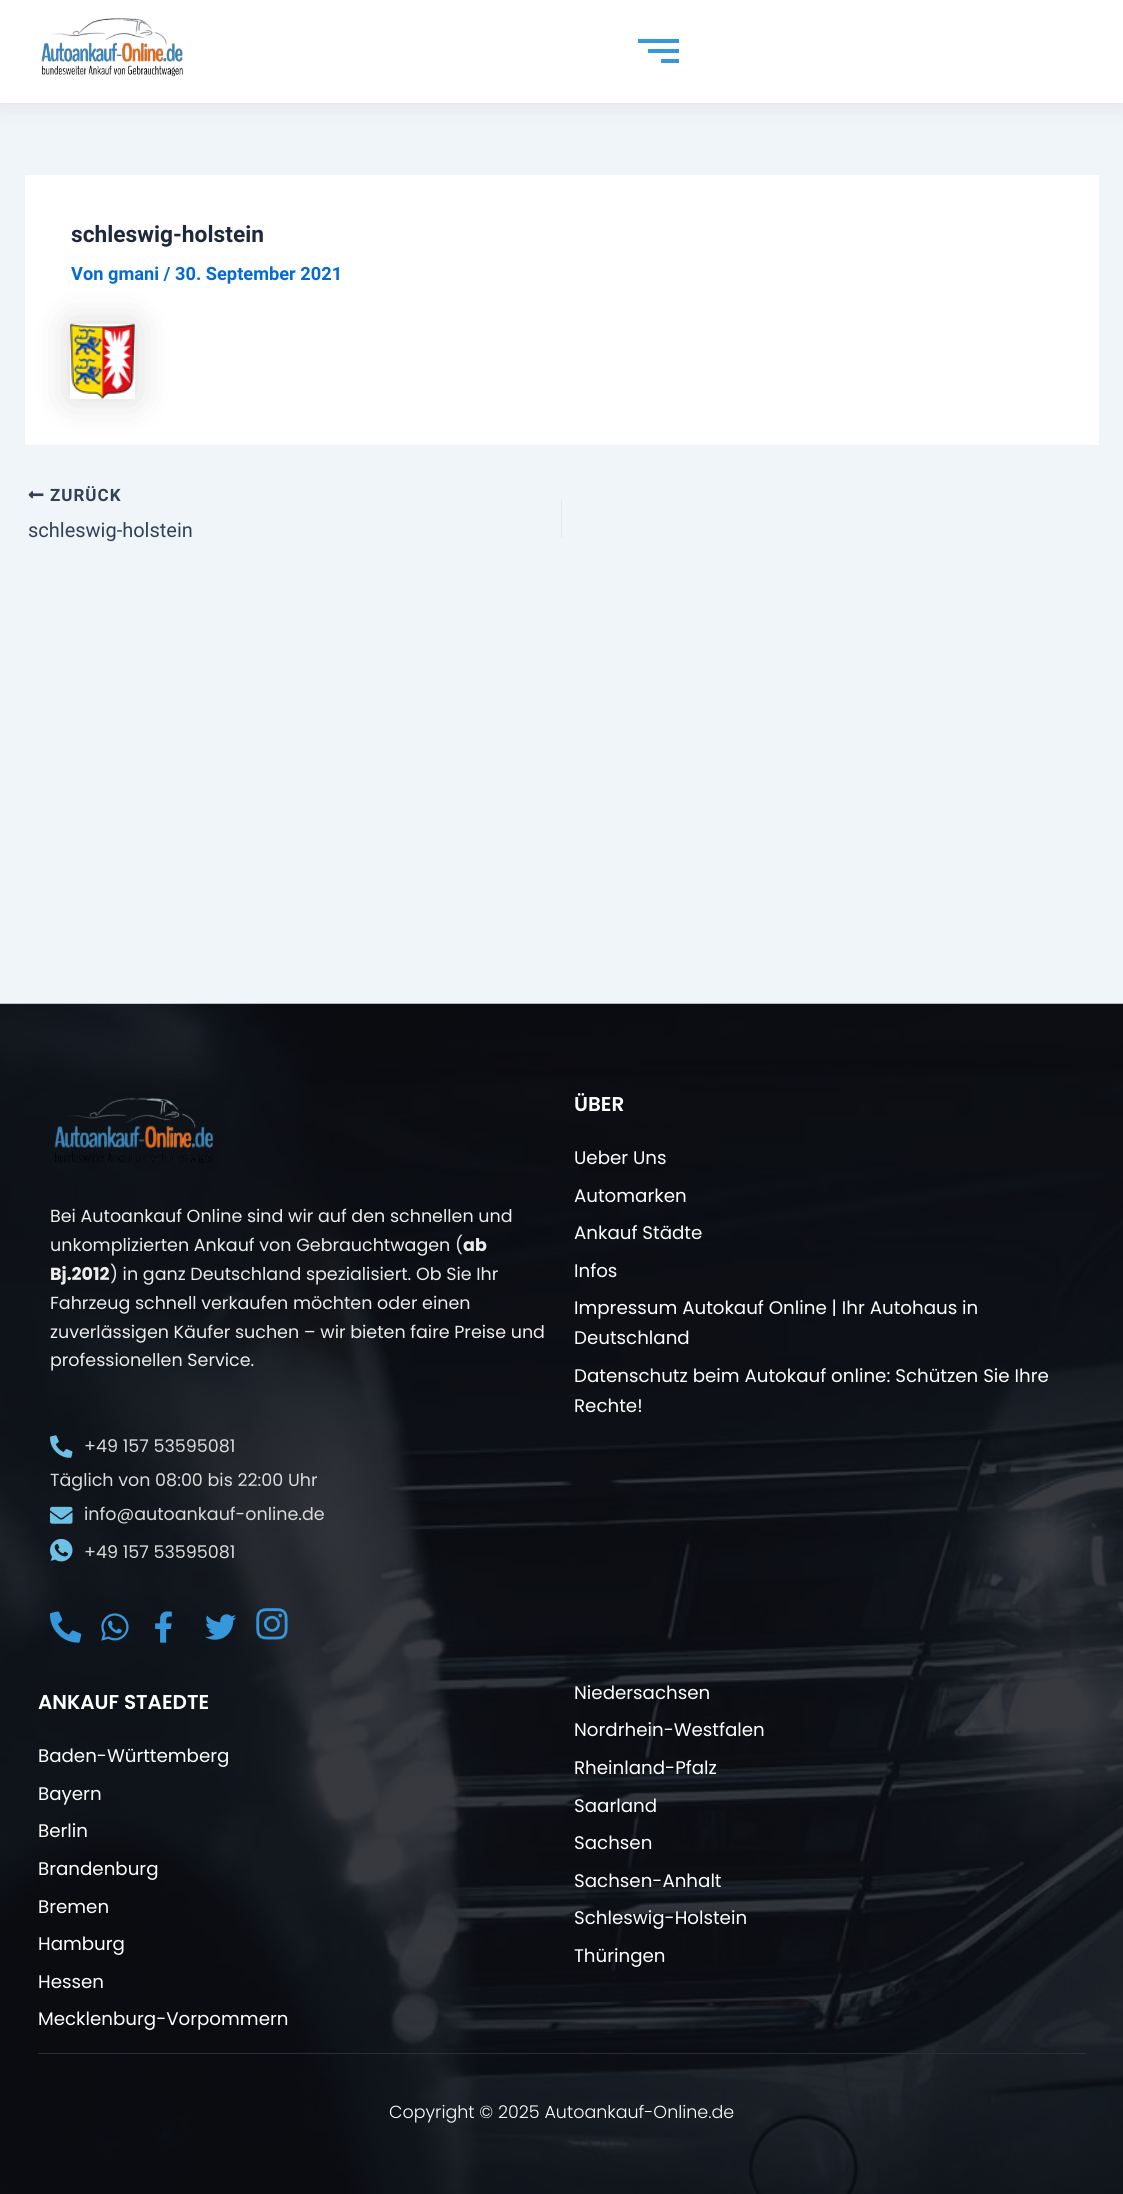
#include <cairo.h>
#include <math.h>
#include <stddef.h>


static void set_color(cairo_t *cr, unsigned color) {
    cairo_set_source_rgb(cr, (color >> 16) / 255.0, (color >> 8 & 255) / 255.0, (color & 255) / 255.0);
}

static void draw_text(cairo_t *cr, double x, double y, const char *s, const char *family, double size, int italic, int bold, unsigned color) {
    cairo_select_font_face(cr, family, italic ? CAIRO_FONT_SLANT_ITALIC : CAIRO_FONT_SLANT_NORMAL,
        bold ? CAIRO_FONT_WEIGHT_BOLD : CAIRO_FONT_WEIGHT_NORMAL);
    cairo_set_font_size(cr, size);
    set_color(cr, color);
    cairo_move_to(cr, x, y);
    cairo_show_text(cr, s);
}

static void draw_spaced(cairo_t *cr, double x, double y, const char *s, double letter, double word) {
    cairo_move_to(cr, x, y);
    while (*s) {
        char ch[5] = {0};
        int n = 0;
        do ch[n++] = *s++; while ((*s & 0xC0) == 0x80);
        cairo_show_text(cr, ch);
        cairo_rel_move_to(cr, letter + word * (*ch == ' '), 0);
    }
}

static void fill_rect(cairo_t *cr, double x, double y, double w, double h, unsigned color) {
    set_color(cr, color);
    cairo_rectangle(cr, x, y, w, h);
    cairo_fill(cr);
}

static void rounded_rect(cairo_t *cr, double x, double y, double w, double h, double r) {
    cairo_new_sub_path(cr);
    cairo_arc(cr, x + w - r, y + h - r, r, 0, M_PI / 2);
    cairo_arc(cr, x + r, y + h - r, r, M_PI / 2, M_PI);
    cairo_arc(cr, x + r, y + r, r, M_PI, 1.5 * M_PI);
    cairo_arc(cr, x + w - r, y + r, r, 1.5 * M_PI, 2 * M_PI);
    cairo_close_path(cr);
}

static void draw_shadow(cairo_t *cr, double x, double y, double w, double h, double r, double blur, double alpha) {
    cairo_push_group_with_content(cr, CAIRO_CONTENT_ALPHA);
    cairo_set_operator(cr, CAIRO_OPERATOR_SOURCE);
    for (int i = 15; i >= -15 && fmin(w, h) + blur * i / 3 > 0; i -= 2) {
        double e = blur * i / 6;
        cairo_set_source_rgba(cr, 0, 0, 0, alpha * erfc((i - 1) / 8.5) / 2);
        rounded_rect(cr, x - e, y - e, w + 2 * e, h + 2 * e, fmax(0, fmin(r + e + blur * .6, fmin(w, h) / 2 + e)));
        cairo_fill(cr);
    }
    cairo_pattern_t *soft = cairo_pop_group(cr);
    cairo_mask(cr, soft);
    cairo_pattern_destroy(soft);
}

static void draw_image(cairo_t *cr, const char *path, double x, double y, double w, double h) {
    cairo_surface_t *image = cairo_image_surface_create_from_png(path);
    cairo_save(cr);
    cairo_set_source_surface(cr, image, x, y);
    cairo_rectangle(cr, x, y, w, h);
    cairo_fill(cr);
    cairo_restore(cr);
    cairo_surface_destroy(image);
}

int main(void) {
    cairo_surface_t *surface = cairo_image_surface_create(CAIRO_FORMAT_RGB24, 1123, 2194);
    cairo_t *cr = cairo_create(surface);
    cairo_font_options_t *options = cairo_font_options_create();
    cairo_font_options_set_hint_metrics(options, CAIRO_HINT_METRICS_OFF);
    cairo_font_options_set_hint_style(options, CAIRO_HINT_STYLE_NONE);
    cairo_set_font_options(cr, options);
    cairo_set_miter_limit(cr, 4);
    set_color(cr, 0xF0F5FA);
    cairo_paint(cr);
    set_color(cr, 0xCBCBCB);
    draw_shadow(cr, 0, 0, 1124, 103, 0, 12.5, 0.5);
    fill_rect(cr, 0, 0, 1123, 103, 0xFFFFFF);
    draw_image(cr, "assets/img1.png", 41, 18, 142, 59);
    fill_rect(cr, 638, 39, 41, 4, 0x3697DB);
    fill_rect(cr, 648, 49, 31, 4, 0x3697DB);
    fill_rect(cr, 661, 59, 18, 4, 0x3697DB);
    fill_rect(cr, 25, 175, 1074, 270, 0xFFFFFF);
    draw_text(cr, 71, 242, "schleswig-holstein", "Roboto", 22.75, 0, 1, 0x1E293B);
    cairo_save(cr);
    cairo_set_fill_rule(cr, CAIRO_FILL_RULE_EVEN_ODD);
    cairo_new_path(cr);
    cairo_move_to(cr, 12, 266);
    cairo_line_to(cr, 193, 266);
    cairo_line_to(cr, 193, 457);
    cairo_line_to(cr, 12, 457);
    cairo_close_path(cr);
    cairo_move_to(cr, 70, 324);
    cairo_line_to(cr, 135, 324);
    cairo_line_to(cr, 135, 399);
    cairo_line_to(cr, 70, 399);
    cairo_close_path(cr);
    cairo_clip(cr);
    set_color(cr, 0x000000);
    draw_shadow(cr, 70, 324, 65, 75, 0, 19, 0.15);
    cairo_restore(cr);
    draw_text(cr, 71, 280, "Von gmani / 30. September 2021", "Roboto", 18.25, 0, 1, 0x046BD2);
    draw_image(cr, "assets/img2.png", 70, 323, 65, 76);
    draw_image(cr, "assets/img3.png", 28, 491, 16, 8);
    cairo_set_font_size(cr, 17);
    set_color(cr, 0x334155);
    draw_spaced(cr, 50, 501, "ZURÜCK", 1, 0);
    draw_text(cr, 28, 537, "schleswig-holstein", "Roboto", 20, 0, 0, 0x334155);
    fill_rect(cr, 561, 500, 1, 38, 0xE1E8ED);
    draw_image(cr, "assets/img4.png", 0, 1003, 1123, 1191);
    draw_image(cr, "assets/img5.png", 54, 1097, 159, 67);
    draw_text(cr, 50, 1222, "Bei Autoankauf Online sind wir auf den schnellen und", "Poppins", 17.5, 0, 0, 0xECECEC);
    draw_text(cr, 50, 1251, "unkomplizierten Ankauf von Gebrauchtwagen (", "Poppins", 17.5, 0, 0, 0xECECEC);
    draw_text(cr, 463, 1251, "ab", "Poppins", 17.5, 0, 1, 0xECECEC);
    draw_text(cr, 50, 1280, "Bj.2012", "Poppins", 17.5, 0, 1, 0xECECEC);
    draw_text(cr, 110, 1280, ") in ganz Deutschland spezialisiert. Ob Sie Ihr", "Poppins", 17.5, 0, 0, 0xECECEC);
    draw_text(cr, 50, 1309, "Fahrzeug schnell verkaufen möchten oder einen", "Poppins", 17.5, 0, 0, 0xECECEC);
    draw_text(cr, 50, 1338, "zuverlässigen Käufer suchen – wir bieten faire Preise und", "Poppins", 17.5, 0, 0, 0xECECEC);
    draw_text(cr, 50, 1366, "professionellen Service.", "Poppins", 17.5, 0, 0, 0xECECEC);
    draw_image(cr, "assets/img6.png", 50, 1435, 23, 23);
    draw_text(cr, 84, 1452, "+49 157 53595081", "Poppins", 17.5, 0, 0, 0xDADADA);
    draw_text(cr, 50, 1486, "Täglich von 08:00 bis 22:00 Uhr", "Poppins", 17.5, 0, 0, 0xDADADA);
    draw_image(cr, "assets/img7.png", 50, 1506, 23, 18);
    draw_text(cr, 84, 1520, "info@autoankauf-online.de", "Poppins", 17.5, 0, 0, 0xDADADA);
    draw_image(cr, "assets/img8.png", 50, 1538, 23, 24);
    draw_text(cr, 84, 1558, "+49 157 53595081", "Poppins", 17.5, 0, 0, 0xDADADA);
    draw_image(cr, "assets/img9.png", 50, 1611, 32, 32);
    draw_image(cr, "assets/img10.png", 101, 1613, 28, 28);
    draw_image(cr, "assets/img11.png", 155, 1611, 17, 32);
    draw_image(cr, "assets/img12.png", 205, 1614, 32, 26);
    draw_image(cr, "assets/img13.png", 256, 1608, 32, 32);
    draw_text(cr, 574, 1111, "ÜBER", "Poppins SemiBold", 20, 0, 0, 0xFFFFFF);
    draw_text(cr, 574, 1164, "Ueber Uns", "Poppins", 18.25, 0, 0, 0xFFFFFF);
    draw_text(cr, 574, 1202, "Automarken", "Poppins", 18.25, 0, 0, 0xFFFFFF);
    draw_text(cr, 574, 1239, "Ankauf Städte", "Poppins", 18.25, 0, 0, 0xFFFFFF);
    draw_text(cr, 574, 1277, "Infos", "Poppins", 18.25, 0, 0, 0xFFFFFF);
    draw_text(cr, 574, 1314, "Impressum Autokauf Online | Ihr Autohaus in", "Poppins", 18.25, 0, 0, 0xFFFFFF);
    draw_text(cr, 574, 1344, "Deutschland", "Poppins", 18.25, 0, 0, 0xFFFFFF);
    draw_text(cr, 574, 1382, "Datenschutz beim Autokauf online: Schützen Sie Ihre", "Poppins", 18.25, 0, 0, 0xFFFFFF);
    draw_text(cr, 574, 1412, "Rechte!", "Poppins", 18.25, 0, 0, 0xFFFFFF);
    draw_text(cr, 38, 1709, "ANKAUF STAEDTE", "Poppins SemiBold", 20, 0, 0, 0xFFFFFF);
    draw_text(cr, 38, 1762, "Baden-Württemberg", "Poppins", 18.25, 0, 0, 0xFFFFFF);
    draw_text(cr, 38, 1800, "Bayern", "Poppins", 18.25, 0, 0, 0xFFFFFF);
    draw_text(cr, 38, 1837, "Berlin", "Poppins", 18.25, 0, 0, 0xFFFFFF);
    draw_text(cr, 38, 1875, "Brandenburg", "Poppins", 18.25, 0, 0, 0xFFFFFF);
    draw_text(cr, 38, 1913, "Bremen", "Poppins", 18.25, 0, 0, 0xFFFFFF);
    draw_text(cr, 38, 1950, "Hamburg", "Poppins", 18.25, 0, 0, 0xFFFFFF);
    draw_text(cr, 38, 1988, "Hessen", "Poppins", 18.25, 0, 0, 0xFFFFFF);
    draw_text(cr, 38, 2025, "Mecklenburg-Vorpommern", "Poppins", 18.25, 0, 0, 0xFFFFFF);
    draw_text(cr, 574, 1699, "Niedersachsen", "Poppins", 18.25, 0, 0, 0xFFFFFF);
    draw_text(cr, 574, 1736, "Nordrhein-Westfalen", "Poppins", 18.25, 0, 0, 0xFFFFFF);
    draw_text(cr, 574, 1774, "Rheinland-Pfalz", "Poppins", 18.25, 0, 0, 0xFFFFFF);
    draw_text(cr, 574, 1812, "Saarland", "Poppins", 18.25, 0, 0, 0xFFFFFF);
    draw_text(cr, 574, 1849, "Sachsen", "Poppins", 18.25, 0, 0, 0xFFFFFF);
    draw_text(cr, 574, 1887, "Sachsen-Anhalt", "Poppins", 18.25, 0, 0, 0xFFFFFF);
    draw_text(cr, 574, 1924, "Schleswig-Holstein", "Poppins", 18.25, 0, 0, 0xFFFFFF);
    draw_text(cr, 574, 1962, "Thüringen", "Poppins", 18.25, 0, 0, 0xFFFFFF);
    fill_rect(cr, 38, 2053, 1048, 1, 0x2B2E38);
    draw_text(cr, 389, 2118, "Copyright © 2025 Autoankauf-Online.de", "Poppins Light", 17.5, 0, 0, 0xFFFFFF);
    cairo_surface_write_to_png(surface, "output.png");
    cairo_font_options_destroy(options);
    cairo_destroy(cr);
    cairo_surface_destroy(surface);
    return 0;
}
